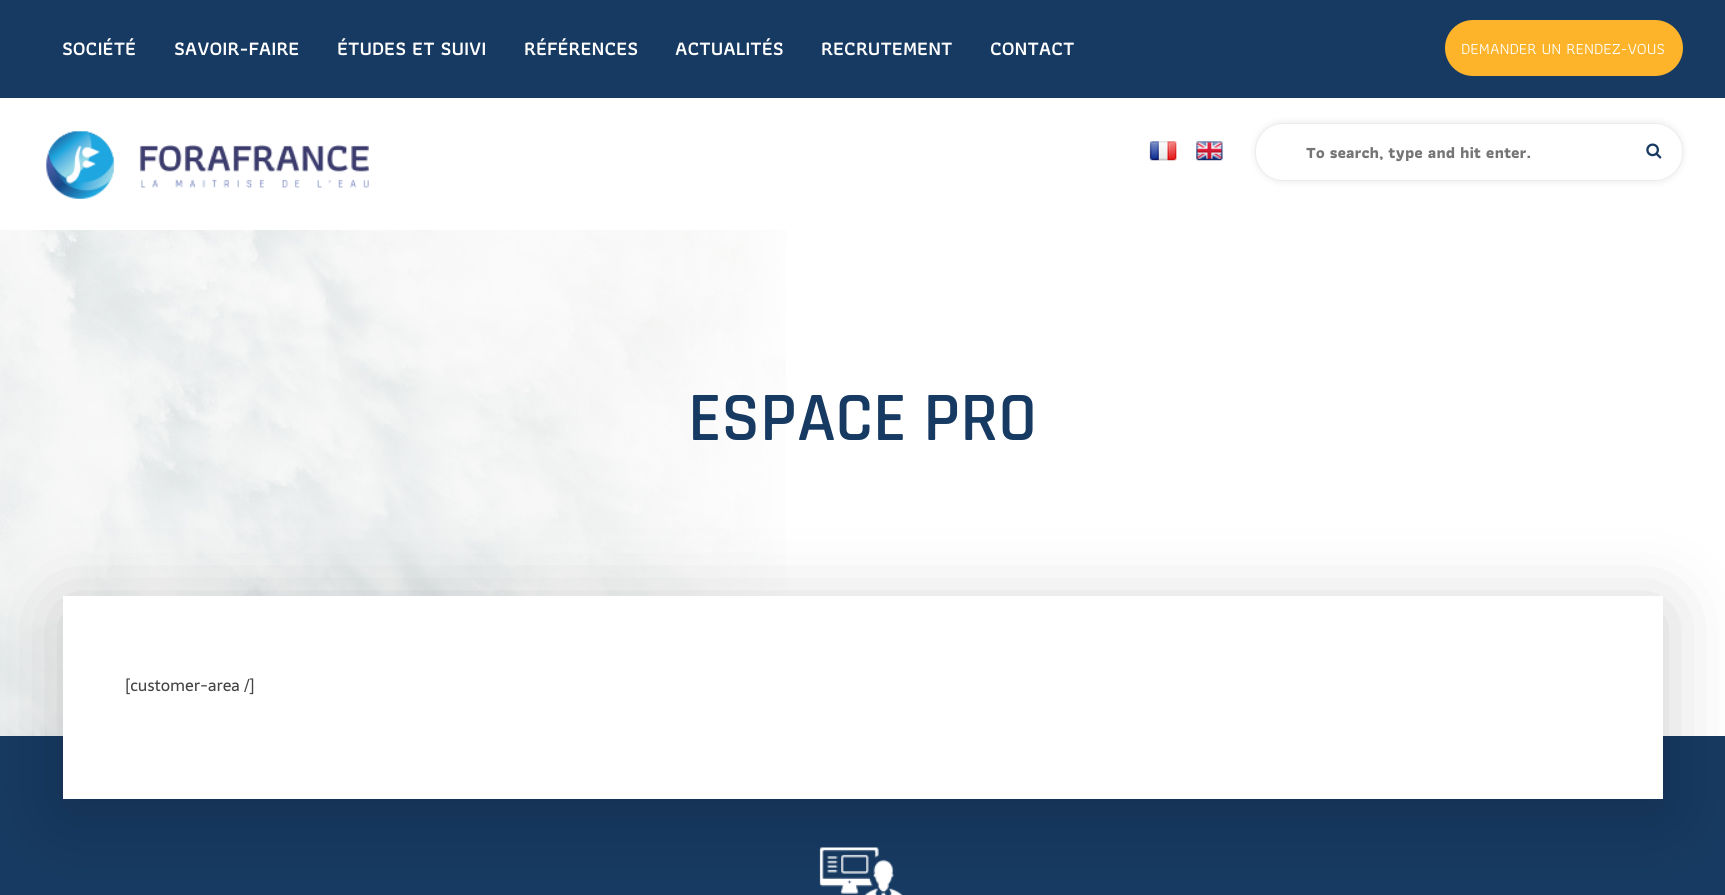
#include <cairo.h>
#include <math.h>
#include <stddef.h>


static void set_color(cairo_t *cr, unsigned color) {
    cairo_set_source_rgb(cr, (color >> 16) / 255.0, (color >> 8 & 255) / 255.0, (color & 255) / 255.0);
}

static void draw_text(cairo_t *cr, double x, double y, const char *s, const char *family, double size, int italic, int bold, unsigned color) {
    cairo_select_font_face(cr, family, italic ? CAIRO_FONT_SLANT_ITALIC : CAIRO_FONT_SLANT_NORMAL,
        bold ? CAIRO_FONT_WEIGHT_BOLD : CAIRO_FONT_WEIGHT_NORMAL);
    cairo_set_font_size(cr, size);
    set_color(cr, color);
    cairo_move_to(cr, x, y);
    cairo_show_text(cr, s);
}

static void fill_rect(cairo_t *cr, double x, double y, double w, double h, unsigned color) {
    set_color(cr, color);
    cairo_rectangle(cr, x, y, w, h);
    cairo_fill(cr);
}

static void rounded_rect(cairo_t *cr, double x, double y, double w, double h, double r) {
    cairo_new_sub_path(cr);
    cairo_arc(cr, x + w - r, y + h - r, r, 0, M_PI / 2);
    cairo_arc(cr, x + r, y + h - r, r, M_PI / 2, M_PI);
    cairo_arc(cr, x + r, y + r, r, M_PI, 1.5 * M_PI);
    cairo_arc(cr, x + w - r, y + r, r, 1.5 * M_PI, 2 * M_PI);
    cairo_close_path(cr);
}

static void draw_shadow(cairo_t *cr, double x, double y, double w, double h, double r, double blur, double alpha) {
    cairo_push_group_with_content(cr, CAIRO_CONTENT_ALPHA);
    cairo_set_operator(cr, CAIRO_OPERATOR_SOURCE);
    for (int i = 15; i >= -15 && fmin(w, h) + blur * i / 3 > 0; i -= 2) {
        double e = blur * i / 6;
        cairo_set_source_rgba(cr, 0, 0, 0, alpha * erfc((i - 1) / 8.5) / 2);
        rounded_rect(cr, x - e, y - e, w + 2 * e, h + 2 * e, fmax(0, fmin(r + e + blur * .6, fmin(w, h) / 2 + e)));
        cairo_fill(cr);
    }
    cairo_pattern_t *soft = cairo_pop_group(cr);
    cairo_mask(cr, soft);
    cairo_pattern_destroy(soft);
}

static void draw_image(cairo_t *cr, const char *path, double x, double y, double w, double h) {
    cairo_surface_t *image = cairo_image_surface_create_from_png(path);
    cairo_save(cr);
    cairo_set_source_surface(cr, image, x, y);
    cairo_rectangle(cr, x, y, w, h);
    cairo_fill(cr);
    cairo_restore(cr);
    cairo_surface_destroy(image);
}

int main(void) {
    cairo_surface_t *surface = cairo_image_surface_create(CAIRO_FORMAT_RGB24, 1725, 895);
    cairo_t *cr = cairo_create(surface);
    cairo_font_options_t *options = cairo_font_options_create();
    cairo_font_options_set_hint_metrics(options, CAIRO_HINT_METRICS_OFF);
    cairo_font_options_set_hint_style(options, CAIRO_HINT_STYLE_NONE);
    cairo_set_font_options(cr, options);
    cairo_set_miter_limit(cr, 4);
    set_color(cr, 0xFFFFFF);
    cairo_paint(cr);
    fill_rect(cr, 0, 0, 1725, 98, 0x173A62);
    draw_text(cr, 62, 55, "SOCIÉTÉ", "Athiti SemiBold", 20, 0, 0, 0xFFFFFF);
    draw_text(cr, 174, 55, "SAVOIR-FAIRE", "Athiti SemiBold", 20, 0, 0, 0xFFFFFF);
    draw_text(cr, 337, 55, "ÉTUDES ET SUIVI", "Athiti SemiBold", 20, 0, 0, 0xFFFFFF);
    draw_text(cr, 524, 55, "RÉFÉRENCES", "Athiti SemiBold", 20, 0, 0, 0xFFFFFF);
    draw_text(cr, 675, 55, "ACTUALITÉS", "Athiti SemiBold", 20, 0, 0, 0xFFFFFF);
    draw_text(cr, 821, 55, "RECRUTEMENT", "Athiti SemiBold", 20, 0, 0, 0xFFFFFF);
    draw_text(cr, 990, 55, "CONTACT", "Athiti SemiBold", 20, 0, 0, 0xFFFFFF);
    set_color(cr, 0xFDB42B);
    rounded_rect(cr, 1445, 20, 238, 56, 28);
    cairo_fill(cr);
    draw_text(cr, 1461, 54, "DEMANDER UN RENDEZ-VOUS", "Athiti", 16.25, 0, 0, 0xFFFFFF);
    draw_image(cr, "assets/img1.png", 46, 131, 323, 68);
    draw_image(cr, "assets/img2.png", 1149, 141, 28, 20);
    draw_image(cr, "assets/img3.png", 1196, 141, 27, 20);
    set_color(cr, 0x000000);
    draw_shadow(cr, 1253, 120, 432, 64, 30, 2.5, 0.05);
    set_color(cr, 0xFFFFFF);
    rounded_rect(cr, 1255.5, 123.5, 427, 57, 27.5);
    cairo_fill_preserve(cr);
    set_color(cr, 0xECECEC);
    cairo_set_line_width(cr, 1);
    cairo_stroke(cr);
    draw_text(cr, 1306, 158, "To search, type and hit enter.", "Athiti", 16.25, 0, 1, 0x757575);
    draw_image(cr, "assets/img4.png", 1646, 143, 16, 16);
    draw_image(cr, "assets/img5.png", 0, 230, 786, 506);
    draw_text(cr, 688, 440, "ESPACE PRO", "Rajdhani SemiBold", 70, 0, 0, 0x173A62);
    fill_rect(cr, 0, 736, 1725, 159, 0x173A62);
    set_color(cr, 0x000000);
    draw_shadow(cr, 63, 609, 1600, 202, 0, 37.5, 0.2);
    fill_rect(cr, 63, 596, 1600, 203, 0xFFFFFF);
    draw_text(cr, 125, 691, "[customer-area /]", "Sarala", 16.25, 0, 0, 0x444444);
    draw_image(cr, "assets/img6.png", 819, 847, 84, 48);
    cairo_surface_write_to_png(surface, "output.png");
    cairo_font_options_destroy(options);
    cairo_destroy(cr);
    cairo_surface_destroy(surface);
    return 0;
}
